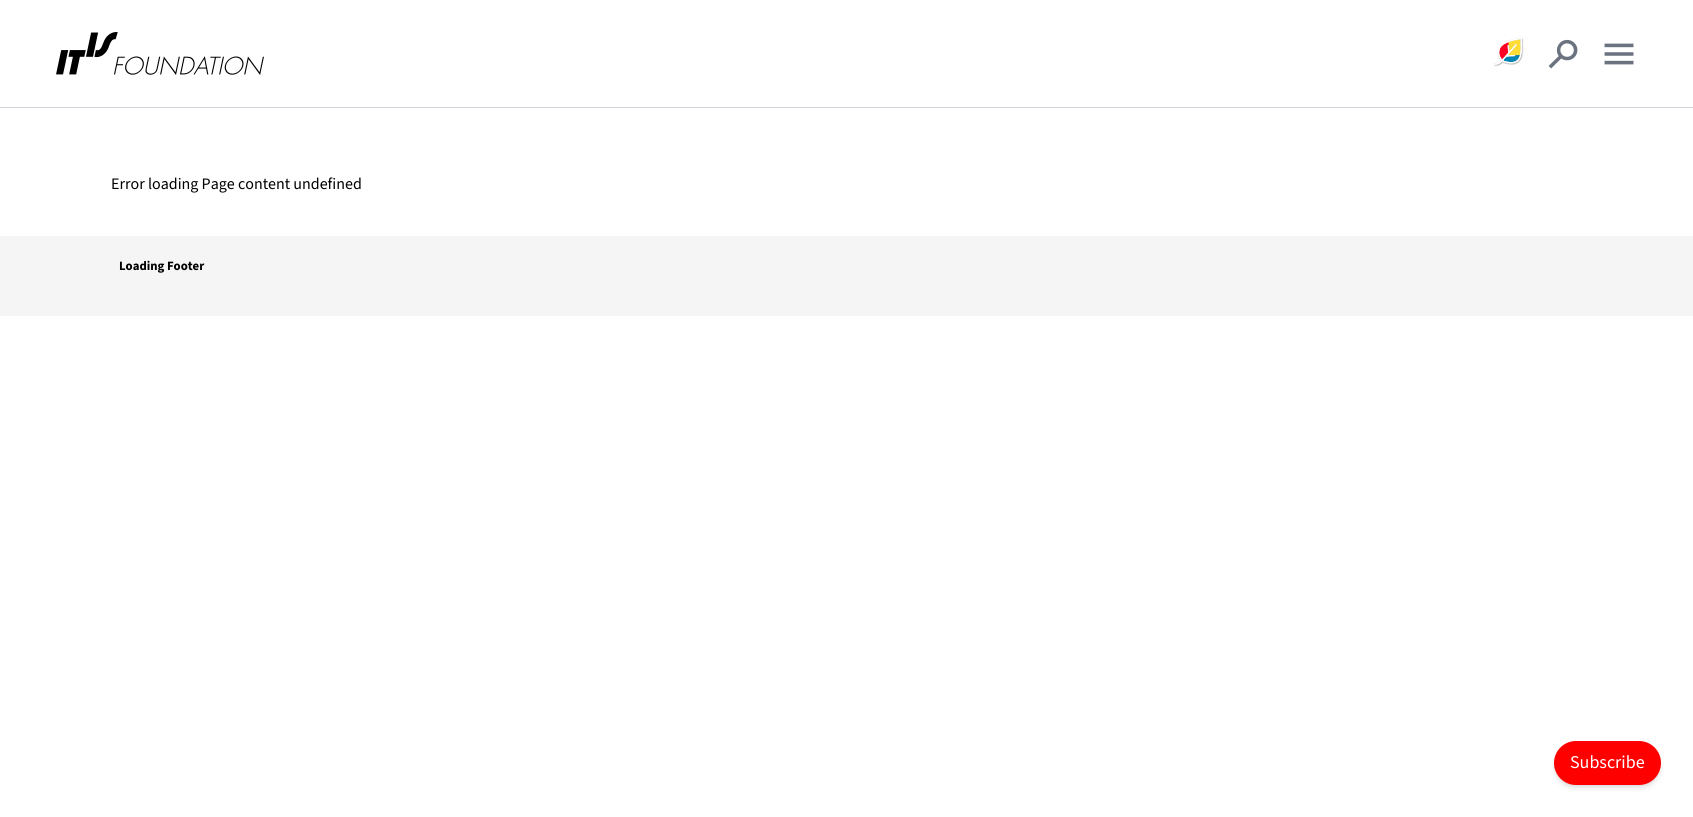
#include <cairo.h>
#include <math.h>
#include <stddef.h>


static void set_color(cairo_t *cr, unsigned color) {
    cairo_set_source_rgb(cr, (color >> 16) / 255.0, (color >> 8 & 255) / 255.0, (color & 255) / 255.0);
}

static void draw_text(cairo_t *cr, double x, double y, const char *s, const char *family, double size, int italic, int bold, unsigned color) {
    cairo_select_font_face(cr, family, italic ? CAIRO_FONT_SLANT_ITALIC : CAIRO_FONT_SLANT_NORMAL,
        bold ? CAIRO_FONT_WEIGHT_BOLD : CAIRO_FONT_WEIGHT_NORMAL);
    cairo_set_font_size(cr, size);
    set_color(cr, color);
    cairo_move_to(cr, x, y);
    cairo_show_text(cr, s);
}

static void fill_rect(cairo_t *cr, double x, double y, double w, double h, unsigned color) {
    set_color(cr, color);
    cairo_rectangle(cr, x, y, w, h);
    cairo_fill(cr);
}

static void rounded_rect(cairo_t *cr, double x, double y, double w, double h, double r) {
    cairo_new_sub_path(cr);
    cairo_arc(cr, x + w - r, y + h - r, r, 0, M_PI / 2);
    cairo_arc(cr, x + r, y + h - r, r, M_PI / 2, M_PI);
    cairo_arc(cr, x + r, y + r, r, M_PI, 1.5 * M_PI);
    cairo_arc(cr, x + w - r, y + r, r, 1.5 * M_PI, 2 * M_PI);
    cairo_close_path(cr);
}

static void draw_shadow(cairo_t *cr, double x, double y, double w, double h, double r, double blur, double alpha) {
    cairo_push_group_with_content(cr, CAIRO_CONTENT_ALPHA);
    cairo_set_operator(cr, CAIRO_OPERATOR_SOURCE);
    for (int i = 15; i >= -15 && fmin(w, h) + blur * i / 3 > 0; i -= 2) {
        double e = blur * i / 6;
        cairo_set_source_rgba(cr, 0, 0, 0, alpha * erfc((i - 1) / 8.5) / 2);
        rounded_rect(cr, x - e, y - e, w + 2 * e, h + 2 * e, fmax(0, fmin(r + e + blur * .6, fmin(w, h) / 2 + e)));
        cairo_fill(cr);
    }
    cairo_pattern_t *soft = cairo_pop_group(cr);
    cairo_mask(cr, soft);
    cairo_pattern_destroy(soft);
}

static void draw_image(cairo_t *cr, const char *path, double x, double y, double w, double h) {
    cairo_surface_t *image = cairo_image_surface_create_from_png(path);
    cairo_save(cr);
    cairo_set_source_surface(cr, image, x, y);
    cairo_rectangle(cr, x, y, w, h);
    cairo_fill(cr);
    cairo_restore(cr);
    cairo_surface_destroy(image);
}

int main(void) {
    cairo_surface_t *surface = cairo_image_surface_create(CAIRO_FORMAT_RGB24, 1693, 817);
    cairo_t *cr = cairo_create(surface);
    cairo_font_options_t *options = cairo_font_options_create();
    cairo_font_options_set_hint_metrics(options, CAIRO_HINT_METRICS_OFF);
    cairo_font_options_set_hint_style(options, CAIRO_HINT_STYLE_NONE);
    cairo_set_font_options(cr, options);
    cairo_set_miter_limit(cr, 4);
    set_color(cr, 0xFFFFFF);
    cairo_paint(cr);
    fill_rect(cr, 0, 107, 1693, 1, 0xD1D5DB);
    draw_image(cr, "assets/img1.png", 56, 32, 208, 43);
    draw_image(cr, "assets/img2.png", 1493, 37, 31, 30);
    draw_image(cr, "assets/img3.png", 1548, 39, 30, 30);
    draw_image(cr, "assets/img4.png", 1604, 43, 30, 22);
    draw_text(cr, 111, 189, "Error loading Page content undefined", "Source Sans 3 ExtraLight", 16, 0, 0, 0x000000);
    fill_rect(cr, 0, 236, 1693, 80, 0xF5F5F5);
    draw_text(cr, 119, 270, "Loading Footer", "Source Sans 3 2 ExtraLight", 12.75, 0, 0, 0x000000);
    set_color(cr, 0x000000);
    draw_shadow(cr, 1556, 745, 103, 40, 20, 2, 0.1);
    draw_shadow(cr, 1555, 746, 105, 42, 21, 3, 0.1);
    set_color(cr, 0xFF0000);
    rounded_rect(cr, 1554, 741, 107, 44, 22);
    cairo_fill(cr);
    draw_text(cr, 1570, 768, "Subscribe", "Source Sans 3 ExtraLight", 18, 0, 0, 0xFFFFFF);
    cairo_surface_write_to_png(surface, "output.png");
    cairo_font_options_destroy(options);
    cairo_destroy(cr);
    cairo_surface_destroy(surface);
    return 0;
}
